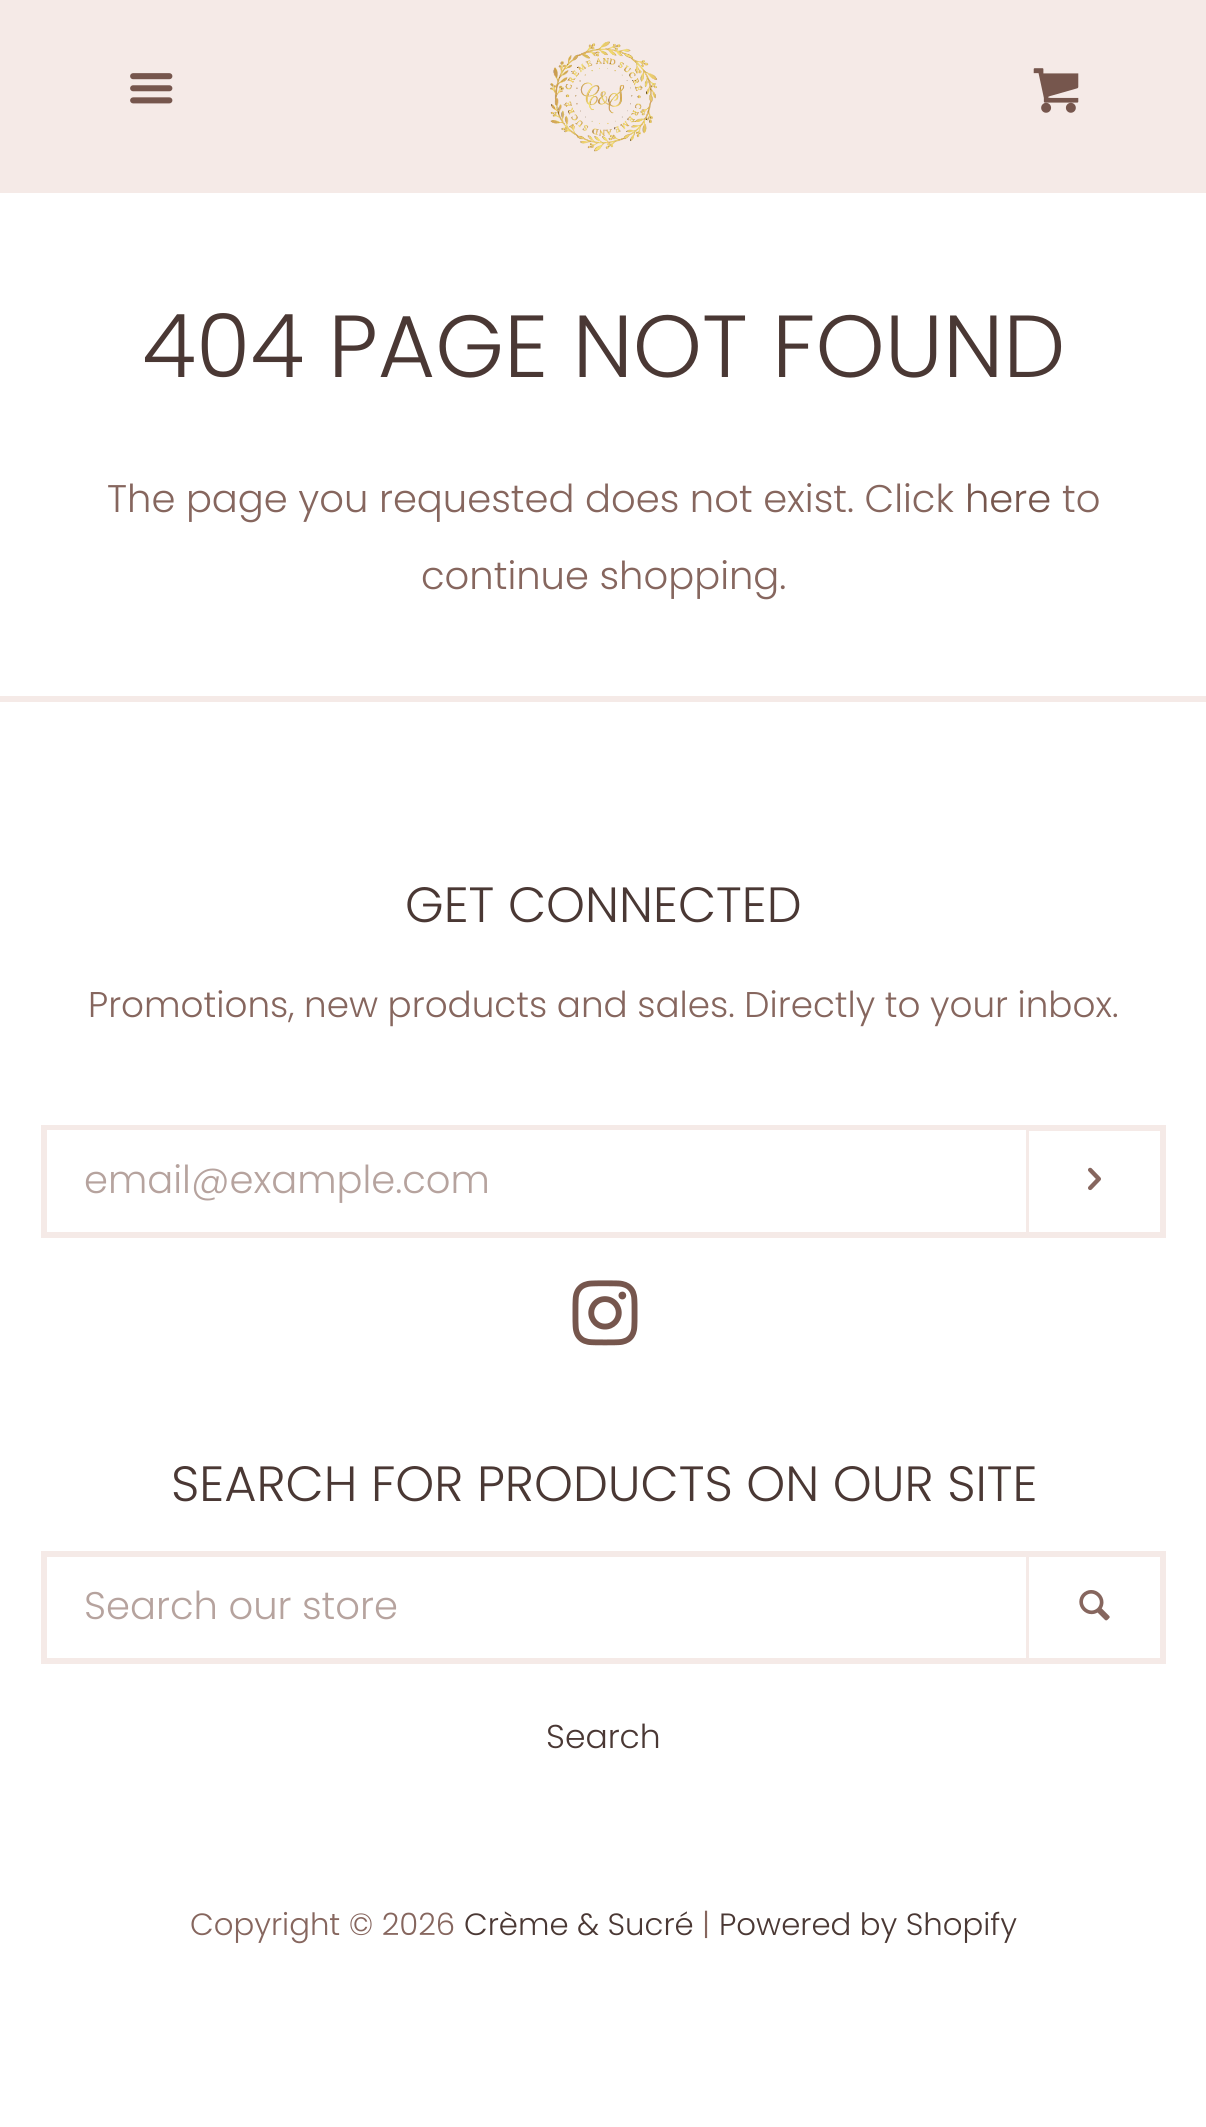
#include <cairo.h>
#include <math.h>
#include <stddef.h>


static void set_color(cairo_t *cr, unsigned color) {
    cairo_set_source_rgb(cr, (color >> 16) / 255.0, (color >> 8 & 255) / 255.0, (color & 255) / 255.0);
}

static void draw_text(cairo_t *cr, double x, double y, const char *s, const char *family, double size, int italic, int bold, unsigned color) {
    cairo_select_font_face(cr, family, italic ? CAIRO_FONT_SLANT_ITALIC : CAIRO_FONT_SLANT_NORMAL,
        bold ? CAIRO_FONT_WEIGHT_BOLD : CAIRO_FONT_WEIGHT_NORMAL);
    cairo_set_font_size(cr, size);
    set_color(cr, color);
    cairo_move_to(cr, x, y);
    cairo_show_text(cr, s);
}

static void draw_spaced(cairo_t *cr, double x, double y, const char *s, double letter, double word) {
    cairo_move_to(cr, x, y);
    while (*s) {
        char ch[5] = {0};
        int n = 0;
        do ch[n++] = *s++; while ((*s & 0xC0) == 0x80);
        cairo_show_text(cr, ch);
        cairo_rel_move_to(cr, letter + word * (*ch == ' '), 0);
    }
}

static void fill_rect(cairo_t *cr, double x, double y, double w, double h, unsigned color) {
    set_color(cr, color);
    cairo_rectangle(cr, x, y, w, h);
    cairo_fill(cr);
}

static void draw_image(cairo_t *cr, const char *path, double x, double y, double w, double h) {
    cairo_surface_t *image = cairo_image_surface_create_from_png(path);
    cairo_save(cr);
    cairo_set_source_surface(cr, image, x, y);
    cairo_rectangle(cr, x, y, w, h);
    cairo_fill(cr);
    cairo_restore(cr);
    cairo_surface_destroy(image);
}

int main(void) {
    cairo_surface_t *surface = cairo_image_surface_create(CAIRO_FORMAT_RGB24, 1206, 2127);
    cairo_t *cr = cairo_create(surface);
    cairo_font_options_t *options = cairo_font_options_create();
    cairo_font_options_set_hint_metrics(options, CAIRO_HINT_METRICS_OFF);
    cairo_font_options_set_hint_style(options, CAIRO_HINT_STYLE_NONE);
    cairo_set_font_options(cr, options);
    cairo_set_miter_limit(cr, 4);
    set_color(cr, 0xF5EAE7);
    cairo_paint(cr);
    draw_image(cr, "assets/img1.png", 130, 73, 43, 31);
    draw_image(cr, "assets/img2.png", 550, 41, 108, 111);
    draw_image(cr, "assets/img3.png", 1033, 68, 46, 45);
    fill_rect(cr, 0, 193, 1206, 1934, 0xFFFFFF);
    draw_text(cr, 142, 377, "404 PAGE NOT FOUND", "Poppins Light", 88, 0, 0, 0x4A3834);
    draw_text(cr, 107, 512, "The page you requested does not exist. Click", "Poppins Light", 38.5, 0, 0, 0x86665E);
    draw_text(cr, 965, 512, "here", "Poppins Light", 38.5, 0, 0, 0x76564D);
    draw_text(cr, 1062, 512, "to", "Poppins Light", 38.5, 0, 0, 0x86665E);
    draw_text(cr, 421, 589, "continue shopping.", "Poppins Light", 38.5, 0, 0, 0x86665E);
    fill_rect(cr, 0, 696, 1206, 6, 0xF5EAE7);
    draw_text(cr, 405, 922, "GET CONNECTED", "Poppins Light", 49.5, 0, 0, 0x4A3834);
    cairo_set_font_size(cr, 35.75);
    set_color(cr, 0x86665E);
    draw_spaced(cr, 88, 1017, "Promotions, new products and sales. Directly to your inbox.", 0, -0.25);
    cairo_rectangle(cr, 44, 1128, 1119, 107);
    set_color(cr, 0xF5EAE7);
    cairo_set_line_width(cr, 6);
    cairo_stroke(cr);
    fill_rect(cr, 47, 1130, 979, 1, 0xFFFFFF);
    fill_rect(cr, 1026, 1130, 3, 102, 0xF5EAE7);
    draw_text(cr, 84, 1193, "email@example.com", "Poppins Light", 38.5, 0, 0, 0xB6A39E);
    draw_image(cr, "assets/img4.png", 1088, 1167, 13, 24);
    draw_image(cr, "assets/img5.png", 572, 1280, 66, 66);
    draw_text(cr, 171, 1501, "SEARCH FOR PRODUCTS ON OUR SITE", "Poppins Light", 49.5, 0, 0, 0x4A3834);
    cairo_rectangle(cr, 44, 1554, 1119, 107);
    set_color(cr, 0xF5EAE7);
    cairo_stroke(cr);
    fill_rect(cr, 1026, 1557, 3, 101, 0xF5EAE7);
    draw_text(cr, 84, 1619, "Search our store", "Poppins Light", 38.5, 0, 0, 0xB6A39E);
    draw_image(cr, "assets/img6.png", 1079, 1590, 31, 31);
    draw_text(cr, 546, 1748, "Search", "Poppins Light", 33, 0, 0, 0x4A3834);
    draw_text(cr, 190, 1935, "Copyright © 2026", "Poppins Light", 30.75, 0, 0, 0x86665E);
    draw_text(cr, 464, 1935, "Crème & Sucré", "Poppins Light", 30.75, 0, 0, 0x4A3834);
    draw_text(cr, 702, 1935, "|", "Poppins Light", 30.75, 0, 0, 0x86665E);
    draw_text(cr, 719, 1935, "Powered by Shopify", "Poppins Light", 30.75, 0, 0, 0x4A3834);
    cairo_surface_write_to_png(surface, "output.png");
    cairo_font_options_destroy(options);
    cairo_destroy(cr);
    cairo_surface_destroy(surface);
    return 0;
}
